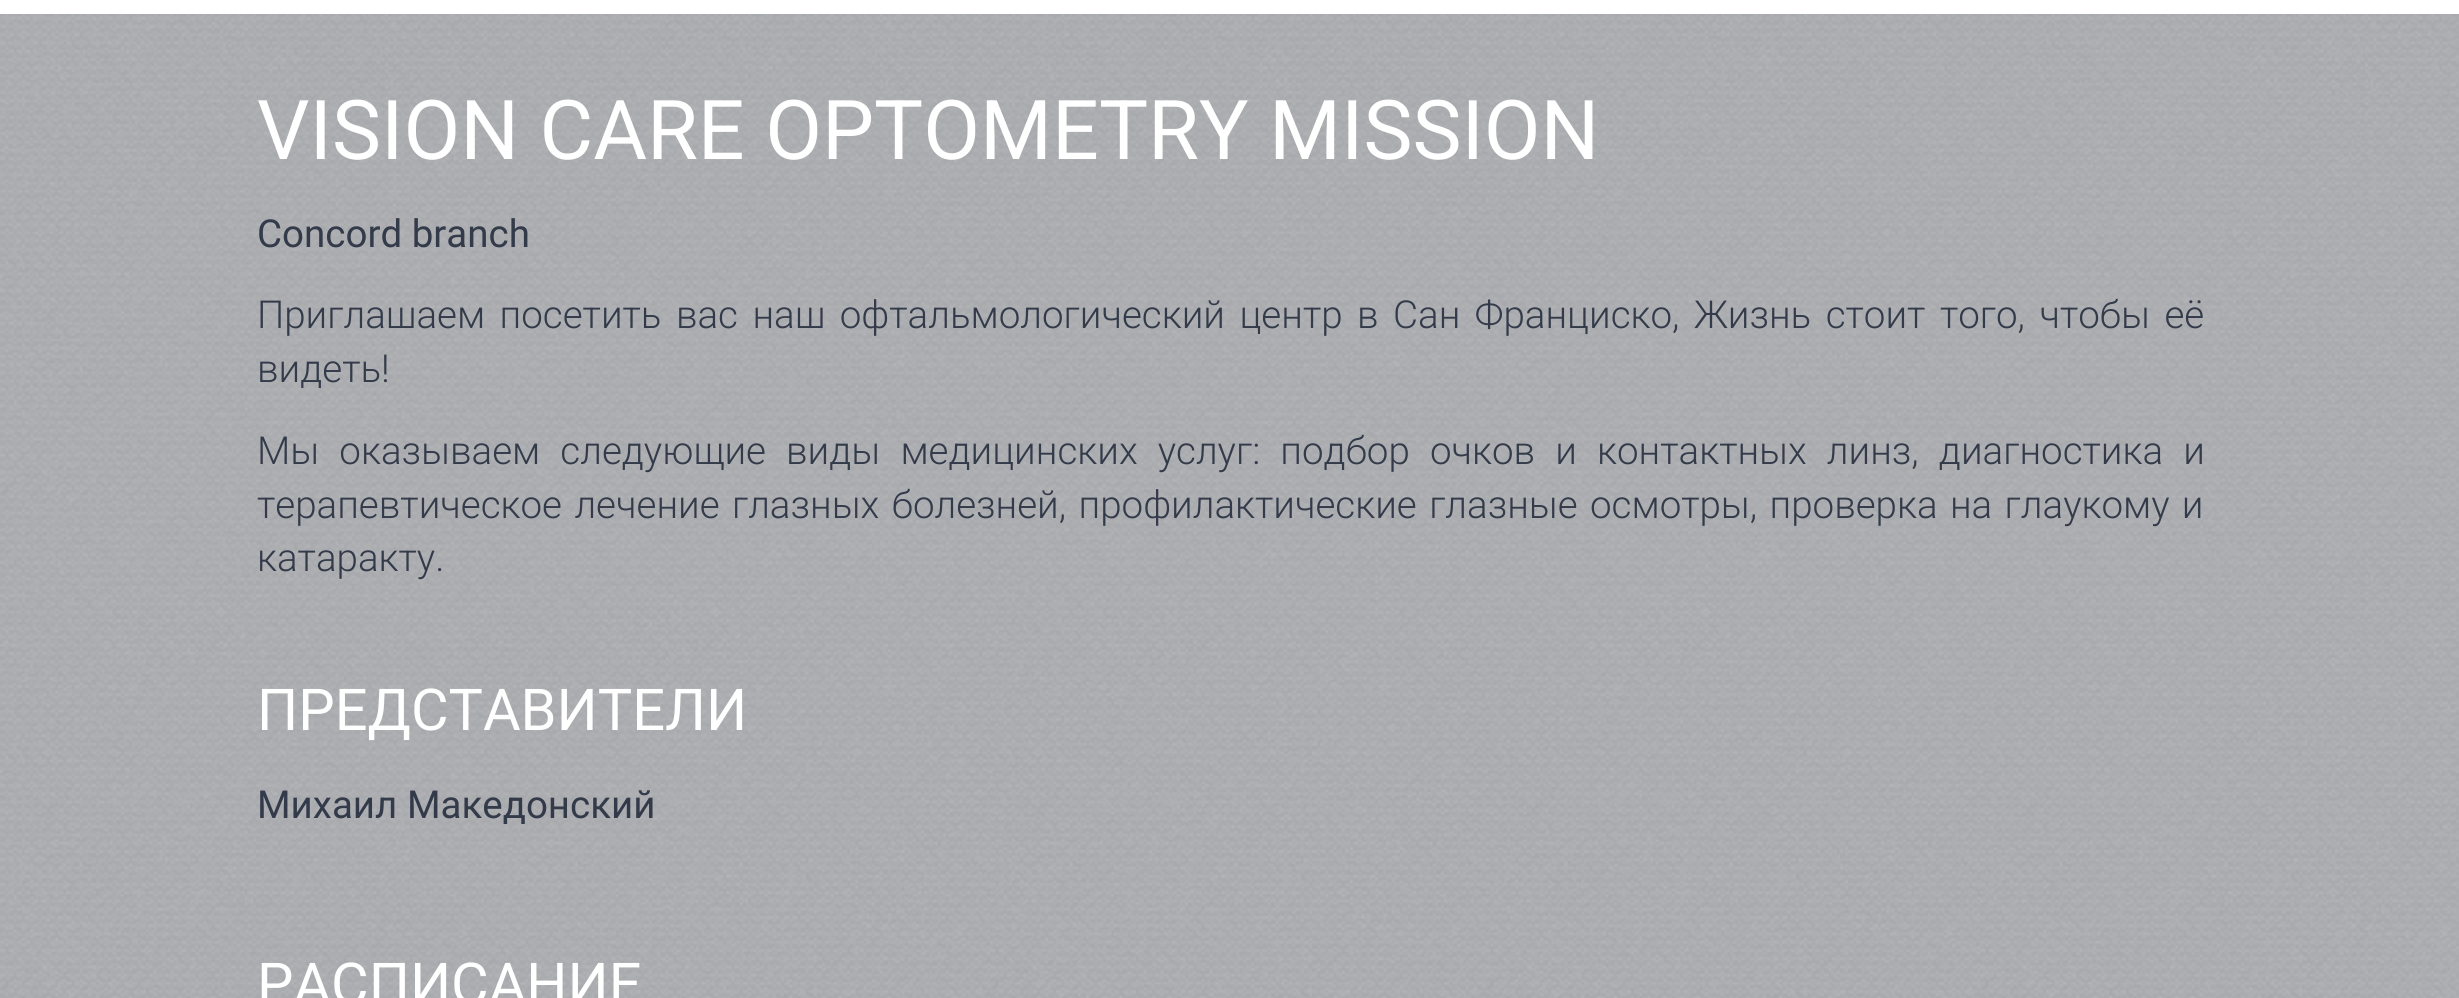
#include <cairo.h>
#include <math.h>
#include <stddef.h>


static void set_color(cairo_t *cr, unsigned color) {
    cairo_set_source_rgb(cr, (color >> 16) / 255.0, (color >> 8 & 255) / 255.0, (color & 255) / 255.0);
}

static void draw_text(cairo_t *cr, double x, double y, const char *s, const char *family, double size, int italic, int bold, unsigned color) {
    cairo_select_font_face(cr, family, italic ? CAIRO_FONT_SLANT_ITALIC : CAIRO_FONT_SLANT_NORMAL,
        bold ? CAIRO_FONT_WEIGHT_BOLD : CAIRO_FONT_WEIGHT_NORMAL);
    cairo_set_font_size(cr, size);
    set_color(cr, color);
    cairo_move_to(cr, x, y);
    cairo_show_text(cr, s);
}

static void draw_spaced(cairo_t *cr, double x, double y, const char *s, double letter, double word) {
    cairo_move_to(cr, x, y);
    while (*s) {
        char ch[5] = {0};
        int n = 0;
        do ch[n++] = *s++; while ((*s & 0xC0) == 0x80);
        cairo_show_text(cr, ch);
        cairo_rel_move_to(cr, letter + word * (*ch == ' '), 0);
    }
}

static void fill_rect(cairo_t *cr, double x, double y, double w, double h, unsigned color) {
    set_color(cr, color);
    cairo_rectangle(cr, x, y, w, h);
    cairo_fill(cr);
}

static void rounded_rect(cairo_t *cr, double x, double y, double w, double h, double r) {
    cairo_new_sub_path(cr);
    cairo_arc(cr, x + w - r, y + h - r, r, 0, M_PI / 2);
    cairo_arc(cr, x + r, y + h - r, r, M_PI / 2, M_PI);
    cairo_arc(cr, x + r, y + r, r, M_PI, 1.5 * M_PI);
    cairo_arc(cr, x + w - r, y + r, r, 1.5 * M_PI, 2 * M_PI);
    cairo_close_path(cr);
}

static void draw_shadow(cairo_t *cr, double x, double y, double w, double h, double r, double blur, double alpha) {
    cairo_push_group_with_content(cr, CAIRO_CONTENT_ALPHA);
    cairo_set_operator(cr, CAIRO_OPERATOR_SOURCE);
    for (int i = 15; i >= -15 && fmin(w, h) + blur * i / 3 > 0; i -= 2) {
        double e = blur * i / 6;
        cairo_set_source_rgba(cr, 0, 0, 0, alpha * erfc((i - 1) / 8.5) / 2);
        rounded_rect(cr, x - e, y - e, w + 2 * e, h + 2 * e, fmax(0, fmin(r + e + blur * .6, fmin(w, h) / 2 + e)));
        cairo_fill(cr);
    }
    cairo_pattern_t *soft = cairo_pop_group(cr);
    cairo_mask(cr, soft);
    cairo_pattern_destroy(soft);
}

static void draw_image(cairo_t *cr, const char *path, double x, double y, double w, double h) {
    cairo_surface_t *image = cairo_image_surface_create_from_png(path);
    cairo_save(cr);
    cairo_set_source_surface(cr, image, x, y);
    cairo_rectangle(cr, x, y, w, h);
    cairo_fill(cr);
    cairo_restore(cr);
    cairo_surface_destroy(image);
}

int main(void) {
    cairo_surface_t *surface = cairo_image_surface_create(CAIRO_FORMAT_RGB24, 2459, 998);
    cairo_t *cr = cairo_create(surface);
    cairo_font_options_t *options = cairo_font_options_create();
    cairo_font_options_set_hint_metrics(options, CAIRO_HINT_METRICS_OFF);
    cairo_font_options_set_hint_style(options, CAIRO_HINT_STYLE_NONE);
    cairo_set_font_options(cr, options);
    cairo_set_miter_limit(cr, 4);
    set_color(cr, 0xFFFFFF);
    cairo_paint(cr);
    cairo_save(cr);
    cairo_set_fill_rule(cr, CAIRO_FILL_RULE_EVEN_ODD);
    cairo_new_path(cr);
    cairo_move_to(cr, 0, 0);
    cairo_line_to(cr, 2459, 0);
    cairo_line_to(cr, 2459, 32);
    cairo_line_to(cr, 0, 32);
    cairo_close_path(cr);
    cairo_move_to(cr, 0, -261);
    cairo_line_to(cr, 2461, -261);
    cairo_line_to(cr, 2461, 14);
    cairo_line_to(cr, 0, 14);
    cairo_close_path(cr);
    cairo_clip(cr);
    set_color(cr, 0x000000);
    draw_shadow(cr, 0, -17, 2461, 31, 0, 5.5, 0.4);
    cairo_restore(cr);
    fill_rect(cr, 0, 14, 2459, 984, 0xA1A4A9);
    draw_image(cr, "assets/img1.png", 0, 14, 2459, 984);
    draw_text(cr, 257, 159, "VISION CARE OPTOMETRY MISSION", "Roboto", 82.5, 0, 0, 0xFFFFFF);
    draw_text(cr, 257, 247, "Concord branch", "Roboto", 38.5, 0, 0, 0x333A49);
    cairo_select_font_face(cr, "Roboto Light", CAIRO_FONT_SLANT_NORMAL, CAIRO_FONT_WEIGHT_NORMAL);
    draw_spaced(cr, 257, 328, "Приглашаем посетить вас наш офтальмологический центр в Сан Франциско, Жизнь стоит того, чтобы её", 0, 5.1);
    draw_text(cr, 257, 382, "видеть!", "Roboto Light", 38.5, 0, 0, 0x333A49);
    draw_spaced(cr, 257, 464, "Мы оказываем следующие виды медицинских услуг: подбор очков и контактных линз, диагностика и", 0, 10.75);
    draw_spaced(cr, 257, 518, "терапевтическое лечение глазных болезней, профилактические глазные осмотры, проверка на глаукому и", 0, 3);
    draw_text(cr, 257, 571, "катаракту.", "Roboto Light", 38.5, 0, 0, 0x333A49);
    draw_text(cr, 257, 730, "ПРЕДСТАВИТЕЛИ", "Roboto", 57.75, 0, 0, 0xFFFFFF);
    draw_text(cr, 257, 818, "Михаил Македонский", "Roboto", 38.5, 0, 0, 0x333A49);
    draw_text(cr, 257, 1004, "РАСПИСАНИЕ", "Roboto", 57.75, 0, 0, 0xFFFFFF);
    cairo_surface_write_to_png(surface, "output.png");
    cairo_font_options_destroy(options);
    cairo_destroy(cr);
    cairo_surface_destroy(surface);
    return 0;
}
